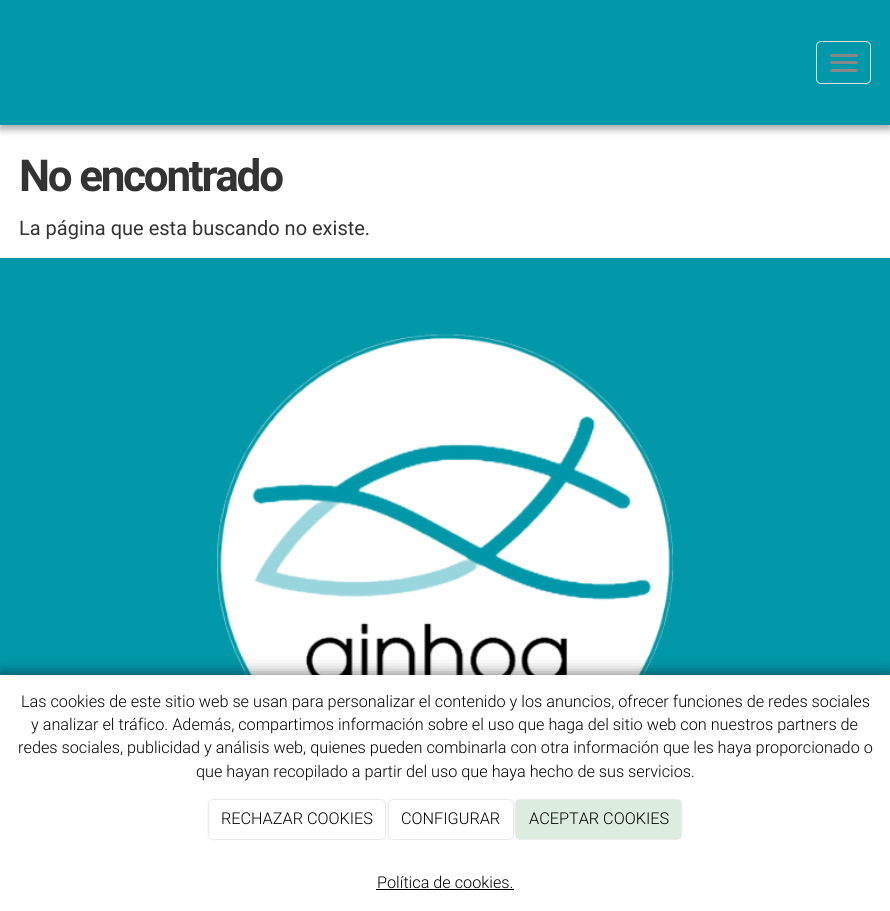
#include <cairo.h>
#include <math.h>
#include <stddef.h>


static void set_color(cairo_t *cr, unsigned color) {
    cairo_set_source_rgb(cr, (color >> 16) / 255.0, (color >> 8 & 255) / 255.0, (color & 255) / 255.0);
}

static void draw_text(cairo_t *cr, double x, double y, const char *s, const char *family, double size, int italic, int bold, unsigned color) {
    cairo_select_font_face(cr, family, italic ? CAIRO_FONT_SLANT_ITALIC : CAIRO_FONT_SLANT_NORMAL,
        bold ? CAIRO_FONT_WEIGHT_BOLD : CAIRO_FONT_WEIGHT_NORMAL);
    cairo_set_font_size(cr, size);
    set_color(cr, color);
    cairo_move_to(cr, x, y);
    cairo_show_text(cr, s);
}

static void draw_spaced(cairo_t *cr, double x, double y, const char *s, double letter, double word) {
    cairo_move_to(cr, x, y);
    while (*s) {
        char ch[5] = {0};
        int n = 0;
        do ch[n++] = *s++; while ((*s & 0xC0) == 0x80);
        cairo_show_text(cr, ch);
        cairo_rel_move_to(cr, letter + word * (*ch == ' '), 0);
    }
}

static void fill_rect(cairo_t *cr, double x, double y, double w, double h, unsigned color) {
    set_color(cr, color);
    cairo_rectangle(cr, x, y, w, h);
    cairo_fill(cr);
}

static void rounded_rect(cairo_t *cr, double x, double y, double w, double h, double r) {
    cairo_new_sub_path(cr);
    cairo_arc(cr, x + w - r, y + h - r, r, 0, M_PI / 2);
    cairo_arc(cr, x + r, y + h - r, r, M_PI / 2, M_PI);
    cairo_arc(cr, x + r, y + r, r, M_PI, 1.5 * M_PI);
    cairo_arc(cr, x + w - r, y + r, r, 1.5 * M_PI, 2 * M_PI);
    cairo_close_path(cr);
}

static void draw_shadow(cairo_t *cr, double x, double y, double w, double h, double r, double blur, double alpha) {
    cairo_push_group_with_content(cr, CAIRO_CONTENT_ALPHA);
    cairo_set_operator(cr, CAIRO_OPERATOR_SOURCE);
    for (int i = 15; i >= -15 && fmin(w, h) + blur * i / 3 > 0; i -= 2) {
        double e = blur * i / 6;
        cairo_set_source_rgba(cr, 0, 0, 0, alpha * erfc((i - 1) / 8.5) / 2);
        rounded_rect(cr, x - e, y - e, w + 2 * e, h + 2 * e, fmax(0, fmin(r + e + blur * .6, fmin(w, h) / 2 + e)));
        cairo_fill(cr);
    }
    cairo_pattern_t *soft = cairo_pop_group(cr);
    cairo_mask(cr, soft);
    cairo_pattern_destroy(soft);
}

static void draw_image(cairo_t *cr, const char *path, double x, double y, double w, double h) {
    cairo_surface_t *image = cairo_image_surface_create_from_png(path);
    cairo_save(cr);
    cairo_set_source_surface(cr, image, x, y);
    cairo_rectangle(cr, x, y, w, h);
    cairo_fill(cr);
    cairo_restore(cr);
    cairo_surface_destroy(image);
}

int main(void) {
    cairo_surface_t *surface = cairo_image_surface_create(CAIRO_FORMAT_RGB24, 890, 911);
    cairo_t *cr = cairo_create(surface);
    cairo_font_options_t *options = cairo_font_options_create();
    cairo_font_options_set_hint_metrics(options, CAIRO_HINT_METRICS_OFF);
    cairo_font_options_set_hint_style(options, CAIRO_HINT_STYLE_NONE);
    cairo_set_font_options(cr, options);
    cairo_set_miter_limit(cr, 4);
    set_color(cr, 0xFFFFFF);
    cairo_paint(cr);
    set_color(cr, 0x000000);
    draw_shadow(cr, 0, 4, 890, 125, 0, 4, 0.23);
    draw_shadow(cr, 0, 4, 890, 125, 0, 4, 0.16);
    fill_rect(cr, 0, 0, 890, 125, 0x0198AA);
    rounded_rect(cr, 816.5, 41.5, 54, 42, 4.5);
    set_color(cr, 0xDDDDDD);
    cairo_set_line_width(cr, 1);
    cairo_stroke(cr);
    set_color(cr, 0x888888);
    rounded_rect(cr, 830, 54, 28, 3, 1.5);
    cairo_fill(cr);
    rounded_rect(cr, 830, 61, 28, 3, 1.5);
    cairo_fill(cr);
    rounded_rect(cr, 830, 69, 28, 3, 1.5);
    cairo_fill(cr);
    cairo_select_font_face(cr, "Roboto", CAIRO_FONT_SLANT_NORMAL, CAIRO_FONT_WEIGHT_BOLD);
    cairo_set_font_size(cr, 44);
    set_color(cr, 0x333333);
    draw_spaced(cr, 19, 191, "No encontrado", -2.25, 0);
    draw_text(cr, 19, 235, "La página que esta buscando no existe.", "Roboto", 20, 0, 0, 0x333333);
    fill_rect(cr, 0, 258, 890, 417, 0x0198AA);
    draw_image(cr, "assets/img1.png", 217, 334, 457, 341);
    set_color(cr, 0x000000);
    draw_shadow(cr, 0, 675, 890, 236, 0, 8, 0.6);
    fill_rect(cr, 0, 675, 890, 236, 0xFFFFFF);
    draw_text(cr, 21, 707, "Las cookies de este sitio web se usan para personalizar el contenido y los anuncios, ofrecer funciones de redes sociales", "Roboto Light", 16.25, 0, 0, 0x000000);
    draw_text(cr, 31, 730, "y analizar el tráfico. Además, compartimos información sobre el uso que haga del sitio web con nuestros partners de", "Roboto Light", 16.25, 0, 0, 0x000000);
    draw_text(cr, 18, 753, "redes sociales, publicidad y análisis web, quienes pueden combinarla con otra información que les haya proporcionado o", "Roboto Light", 16.25, 0, 0, 0x000000);
    draw_text(cr, 196, 777, "que hayan recopilado a partir del uso que haya hecho de sus servicios.", "Roboto Light", 16.25, 0, 0, 0x000000);
    set_color(cr, 0x000000);
    draw_shadow(cr, 209, 800, 176, 39, 4, 1, 0.25);
    set_color(cr, 0xFFFFFF);
    rounded_rect(cr, 209, 800, 176, 39, 4);
    cairo_fill(cr);
    draw_text(cr, 221, 824, "RECHAZAR COOKIES", "Roboto Light", 16.25, 0, 0, 0x000000);
    set_color(cr, 0x000000);
    draw_shadow(cr, 389, 800, 124, 39, 4, 1, 0.25);
    set_color(cr, 0xFFFFFF);
    rounded_rect(cr, 389, 800, 124, 39, 4);
    cairo_fill(cr);
    draw_text(cr, 401, 824, "CONFIGURAR", "Roboto Light", 16.25, 0, 0, 0x000000);
    set_color(cr, 0x000000);
    draw_shadow(cr, 516, 800, 165, 39, 4, 1, 0.25);
    set_color(cr, 0xDCECDF);
    rounded_rect(cr, 516, 800, 165, 39, 4);
    cairo_fill(cr);
    draw_text(cr, 529, 824, "ACEPTAR COOKIES", "Roboto Light", 16.25, 0, 0, 0x000000);
    draw_text(cr, 377, 888, "Política de cookies.", "Roboto Light", 16.25, 0, 0, 0x000000);
    fill_rect(cr, 376, 889, 138, 1, 0x000000);
    cairo_surface_write_to_png(surface, "output.png");
    cairo_font_options_destroy(options);
    cairo_destroy(cr);
    cairo_surface_destroy(surface);
    return 0;
}
